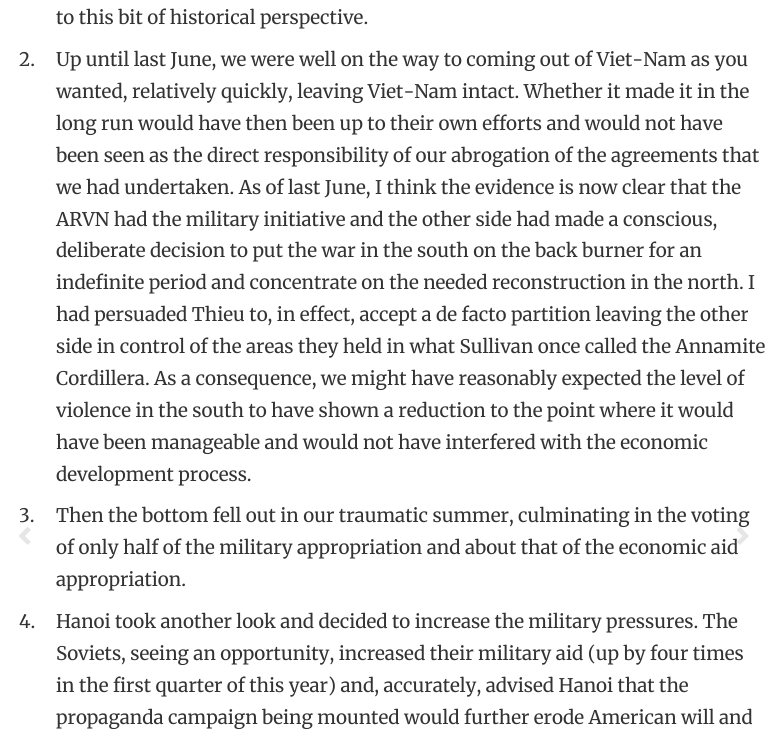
#include <cairo.h>
#include <math.h>
#include <stddef.h>


static void set_color(cairo_t *cr, unsigned color) {
    cairo_set_source_rgb(cr, (color >> 16) / 255.0, (color >> 8 & 255) / 255.0, (color & 255) / 255.0);
}

static void draw_text(cairo_t *cr, double x, double y, const char *s, const char *family, double size, int italic, int bold, unsigned color) {
    cairo_select_font_face(cr, family, italic ? CAIRO_FONT_SLANT_ITALIC : CAIRO_FONT_SLANT_NORMAL,
        bold ? CAIRO_FONT_WEIGHT_BOLD : CAIRO_FONT_WEIGHT_NORMAL);
    cairo_set_font_size(cr, size);
    set_color(cr, color);
    cairo_move_to(cr, x, y);
    cairo_show_text(cr, s);
}

int main(void) {
    cairo_surface_t *surface = cairo_image_surface_create(CAIRO_FORMAT_RGB24, 784, 738);
    cairo_t *cr = cairo_create(surface);
    cairo_font_options_t *options = cairo_font_options_create();
    cairo_font_options_set_hint_metrics(options, CAIRO_HINT_METRICS_OFF);
    cairo_font_options_set_hint_style(options, CAIRO_HINT_STYLE_NONE);
    cairo_set_font_options(cr, options);
    cairo_set_miter_limit(cr, 4);
    set_color(cr, 0xFFFFFF);
    cairo_paint(cr);
    draw_text(cr, 56, 24, "to this bit of historical perspective.", "Merriweather", 18.75, 0, 0, 0x333333);
    draw_text(cr, 19, 66, "2.", "Merriweather", 18.75, 0, 0, 0x333333);
    draw_text(cr, 56, 66, "Up until last June, we were well on the way to coming out of Viet-Nam as you", "Merriweather", 18.75, 0, 0, 0x333333);
    draw_text(cr, 56, 98, "wanted, relatively quickly, leaving Viet-Nam intact. Whether it made it in the", "Merriweather", 18.75, 0, 0, 0x333333);
    draw_text(cr, 56, 130, "long run would have then been up to their own efforts and would not have", "Merriweather", 18.75, 0, 0, 0x333333);
    draw_text(cr, 56, 162, "been seen as the direct responsibility of our abrogation of the agreements that", "Merriweather", 18.75, 0, 0, 0x333333);
    draw_text(cr, 56, 194, "we had undertaken. As of last June, I think the evidence is now clear that the", "Merriweather", 18.75, 0, 0, 0x333333);
    draw_text(cr, 56, 226, "ARVN had the military initiative and the other side had made a conscious,", "Merriweather", 18.75, 0, 0, 0x333333);
    draw_text(cr, 56, 257, "deliberate decision to put the war in the south on the back burner for an", "Merriweather", 18.75, 0, 0, 0x333333);
    draw_text(cr, 56, 289, "indefinite period and concentrate on the needed reconstruction in the north. I", "Merriweather", 18.75, 0, 0, 0x333333);
    draw_text(cr, 56, 321, "had persuaded Thieu to, in effect, accept a de facto partition leaving the other", "Merriweather", 18.75, 0, 0, 0x333333);
    draw_text(cr, 56, 353, "side in control of the areas they held in what Sullivan once called the Annamite", "Merriweather", 18.75, 0, 0, 0x333333);
    draw_text(cr, 56, 385, "Cordillera. As a consequence, we might have reasonably expected the level of", "Merriweather", 18.75, 0, 0, 0x333333);
    draw_text(cr, 56, 417, "violence in the south to have shown a reduction to the point where it would", "Merriweather", 18.75, 0, 0, 0x333333);
    draw_text(cr, 56, 449, "have been manageable and would not have interfered with the economic", "Merriweather", 18.75, 0, 0, 0x333333);
    draw_text(cr, 56, 481, "development process.", "Merriweather", 18.75, 0, 0, 0x333333);
    draw_text(cr, 19, 522, "3.", "Merriweather", 18.75, 0, 0, 0x333333);
    draw_text(cr, 56, 522, "Then the bottom fell out in our traumatic summer, culminating in the voting", "Merriweather", 18.75, 0, 0, 0x333333);
    draw_text(cr, 56, 554, "of only half of the military appropriation and about that of the economic aid", "Merriweather", 18.75, 0, 0, 0x333333);
    draw_text(cr, 56, 586, "appropriation.", "Merriweather", 18.75, 0, 0, 0x333333);
    draw_text(cr, 19, 628, "4.", "Merriweather", 18.75, 0, 0, 0x333333);
    draw_text(cr, 56, 628, "Hanoi took another look and decided to increase the military pressures. The", "Merriweather", 18.75, 0, 0, 0x333333);
    draw_text(cr, 56, 660, "Soviets, seeing an opportunity, increased their military aid (up by four times", "Merriweather", 18.75, 0, 0, 0x333333);
    draw_text(cr, 56, 692, "in the first quarter of this year) and, accurately, advised Hanoi that the", "Merriweather", 18.75, 0, 0, 0x333333);
    draw_text(cr, 56, 724, "propaganda campaign being mounted would further erode American will and", "Merriweather", 18.75, 0, 0, 0x333333);
    set_color(cr, 0xE6E6E6);
    cairo_new_path(cr);
    cairo_move_to(cr, 31, 530);
    cairo_line_to(cr, 25, 536);
    cairo_line_to(cr, 31, 542);
    cairo_line_to(cr, 27.5, 545);
    cairo_line_to(cr, 18.5, 536);
    cairo_line_to(cr, 27.5, 526.5);
    cairo_close_path(cr);
    cairo_fill(cr);
    cairo_new_path(cr);
    cairo_move_to(cr, 749, 536);
    cairo_line_to(cr, 740, 545);
    cairo_line_to(cr, 736.5, 542);
    cairo_line_to(cr, 742.5, 536);
    cairo_line_to(cr, 736.5, 530);
    cairo_line_to(cr, 740, 526.5);
    cairo_close_path(cr);
    cairo_fill(cr);
    cairo_surface_write_to_png(surface, "output.png");
    cairo_font_options_destroy(options);
    cairo_destroy(cr);
    cairo_surface_destroy(surface);
    return 0;
}
